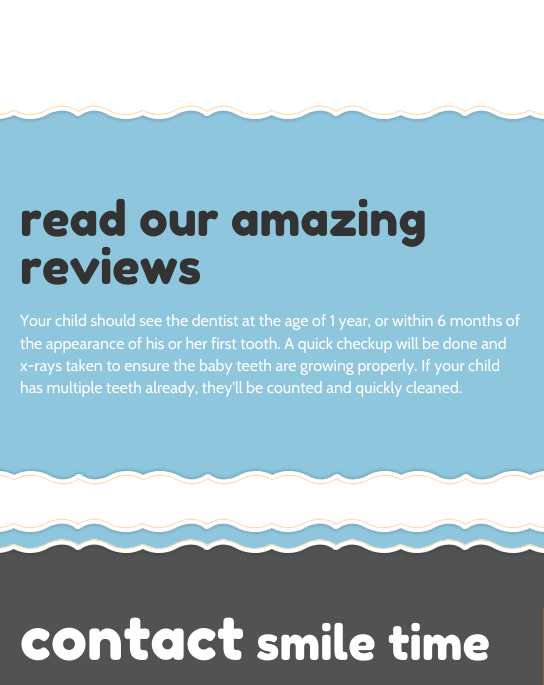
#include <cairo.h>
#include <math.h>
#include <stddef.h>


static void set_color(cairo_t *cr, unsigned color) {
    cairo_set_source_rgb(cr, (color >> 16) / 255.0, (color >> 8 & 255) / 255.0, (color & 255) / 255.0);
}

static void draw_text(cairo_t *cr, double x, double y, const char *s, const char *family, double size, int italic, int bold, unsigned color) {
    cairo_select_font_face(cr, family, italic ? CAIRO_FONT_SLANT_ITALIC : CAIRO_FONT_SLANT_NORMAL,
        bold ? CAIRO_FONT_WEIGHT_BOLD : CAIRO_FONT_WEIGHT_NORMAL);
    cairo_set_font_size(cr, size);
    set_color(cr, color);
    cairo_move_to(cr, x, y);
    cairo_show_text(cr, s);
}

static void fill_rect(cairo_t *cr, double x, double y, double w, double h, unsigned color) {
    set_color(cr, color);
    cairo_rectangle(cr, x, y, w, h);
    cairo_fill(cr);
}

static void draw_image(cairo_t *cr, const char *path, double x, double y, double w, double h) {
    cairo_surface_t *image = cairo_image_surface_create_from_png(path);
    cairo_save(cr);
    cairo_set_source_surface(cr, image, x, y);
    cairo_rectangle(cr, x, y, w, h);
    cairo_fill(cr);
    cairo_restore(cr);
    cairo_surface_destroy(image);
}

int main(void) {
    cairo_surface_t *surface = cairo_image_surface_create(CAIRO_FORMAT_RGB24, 544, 685);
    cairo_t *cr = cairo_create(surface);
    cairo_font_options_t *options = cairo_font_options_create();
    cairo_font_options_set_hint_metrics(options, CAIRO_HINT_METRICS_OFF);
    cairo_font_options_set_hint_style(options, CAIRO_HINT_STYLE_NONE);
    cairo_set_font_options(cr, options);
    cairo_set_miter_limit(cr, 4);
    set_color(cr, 0xFFFFFF);
    cairo_paint(cr);
    draw_image(cr, "assets/img1.png", 0, 105, 544, 19);
    fill_rect(cr, 0, 124, 544, 356, 0x8EC6DE);
    draw_image(cr, "assets/img2.png", 0, 467, 544, 19);
    draw_text(cr, 20, 236, "read our amazing", "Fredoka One", 48, 0, 0, 0x333333);
    draw_text(cr, 20, 284, "reviews", "Fredoka One", 48, 0, 0, 0x333333);
    draw_text(cr, 20, 326, "Your child should see the dentist at the age of 1 year, or within 6 months of", "Cabin", 16, 0, 0, 0xFFFFFF);
    draw_text(cr, 20, 349, "the appearance of his or her first tooth. A quick checkup will be done and", "Cabin", 16, 0, 0, 0xFFFFFF);
    draw_text(cr, 20, 371, "x-rays taken to ensure the baby teeth are growing properly. If your child", "Cabin", 16, 0, 0, 0xFFFFFF);
    draw_text(cr, 20, 393, "has multiple teeth already, they'll be counted and quickly cleaned.", "Cabin", 16, 0, 0, 0xFFFFFF);
    draw_image(cr, "assets/img1.png", 0, 518, 544, 19);
    fill_rect(cr, 0, 537, 544, 12, 0x8EC6DE);
    draw_image(cr, "assets/img3.png", 0, 539, 544, 19);
    fill_rect(cr, 0, 558, 544, 127, 0x525252);
    fill_rect(cr, 543, 608, 1, 77, 0x846539);
    draw_text(cr, 20, 660, "contact", "Fredoka One", 60, 0, 0, 0xFFFFFF);
    draw_text(cr, 256, 660, "smile time", "Fredoka One", 48, 0, 0, 0xFFFFFF);
    cairo_surface_write_to_png(surface, "output.png");
    cairo_font_options_destroy(options);
    cairo_destroy(cr);
    cairo_surface_destroy(surface);
    return 0;
}
